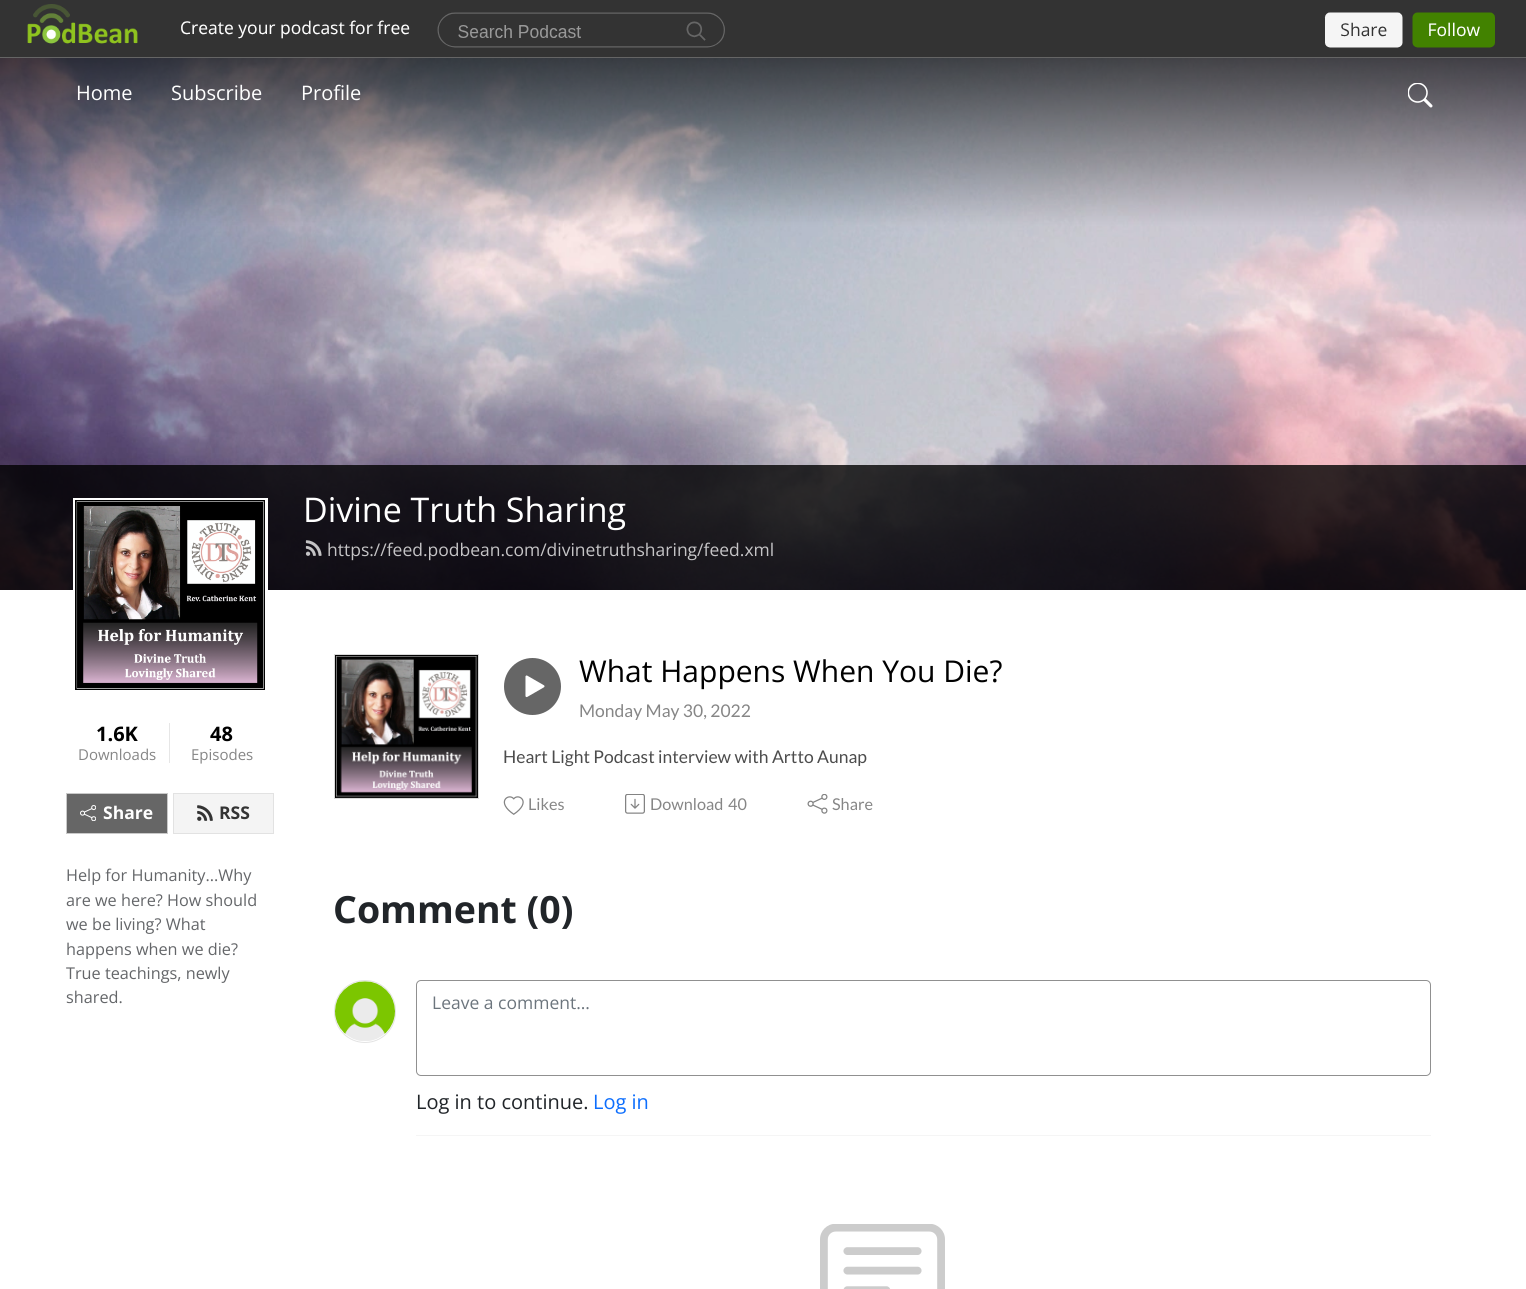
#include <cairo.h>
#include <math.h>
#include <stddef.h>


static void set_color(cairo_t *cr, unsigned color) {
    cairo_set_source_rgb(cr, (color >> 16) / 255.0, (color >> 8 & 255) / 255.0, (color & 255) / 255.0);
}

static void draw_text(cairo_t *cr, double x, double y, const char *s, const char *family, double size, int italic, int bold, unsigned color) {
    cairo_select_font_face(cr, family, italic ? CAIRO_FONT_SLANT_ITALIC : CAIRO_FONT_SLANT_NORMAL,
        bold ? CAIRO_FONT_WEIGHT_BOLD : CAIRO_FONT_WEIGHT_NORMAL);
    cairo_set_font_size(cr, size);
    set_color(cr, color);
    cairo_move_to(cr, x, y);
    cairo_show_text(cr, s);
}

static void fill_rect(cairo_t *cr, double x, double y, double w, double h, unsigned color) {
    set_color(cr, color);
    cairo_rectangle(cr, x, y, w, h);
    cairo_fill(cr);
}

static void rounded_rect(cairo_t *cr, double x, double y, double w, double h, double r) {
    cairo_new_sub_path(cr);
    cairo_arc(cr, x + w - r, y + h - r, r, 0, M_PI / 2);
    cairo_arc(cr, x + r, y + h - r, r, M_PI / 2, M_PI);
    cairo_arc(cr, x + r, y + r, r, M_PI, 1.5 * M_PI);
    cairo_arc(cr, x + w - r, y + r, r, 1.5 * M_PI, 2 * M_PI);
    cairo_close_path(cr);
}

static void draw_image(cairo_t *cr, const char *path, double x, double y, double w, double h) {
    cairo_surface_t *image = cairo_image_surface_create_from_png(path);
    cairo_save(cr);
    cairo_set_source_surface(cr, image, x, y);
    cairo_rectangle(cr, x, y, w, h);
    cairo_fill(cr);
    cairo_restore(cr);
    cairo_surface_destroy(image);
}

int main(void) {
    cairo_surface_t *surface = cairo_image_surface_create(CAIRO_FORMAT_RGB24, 1526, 1289);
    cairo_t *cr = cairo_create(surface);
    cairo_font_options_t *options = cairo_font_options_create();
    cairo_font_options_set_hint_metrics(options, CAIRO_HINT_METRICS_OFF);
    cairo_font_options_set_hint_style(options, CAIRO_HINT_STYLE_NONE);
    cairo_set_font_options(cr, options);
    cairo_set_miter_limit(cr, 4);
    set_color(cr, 0xFFFFFF);
    cairo_paint(cr);
    fill_rect(cr, 0, 0, 1526, 4, 0x333333);
    draw_image(cr, "assets/img1.png", 0, 4, 1526, 54);
    draw_image(cr, "assets/img3.png", 0, 58, 1526, 532);
    draw_text(cr, 76, 100, "Home", "Open Sans", 20, 0, 0, 0xFFFFFF);
    draw_text(cr, 171, 100, "Subscribe", "Open Sans", 20, 0, 0, 0xFFFFFF);
    draw_text(cr, 301, 100, "Profile", "Open Sans", 20, 0, 0, 0xFFFFFF);
    draw_image(cr, "assets/img2.png", 1408, 83, 25, 25);
    cairo_set_source_rgba(cr, 0, 0, 0, 0.8);
    cairo_rectangle(cr, 0, 465, 1526, 125);
    cairo_fill(cr);
    draw_text(cr, 303, 522, "Divine Truth Sharing", "Open Sans", 34, 0, 0, 0xFFFFFF);
    draw_image(cr, "assets/img4.png", 305, 540, 17, 16);
    draw_text(cr, 327, 556, "https://feed.podbean.com/divinetruthsharing/feed.xml", "Open Sans", 17.5, 0, 0, 0xC5C4C6);
    cairo_rectangle(cr, 74.5, 499.5, 192, 192);
    set_color(cr, 0xFFFFFF);
    cairo_set_line_width(cr, 3);
    cairo_stroke(cr);
    draw_image(cr, "assets/img5.png", 75, 500, 190, 190);
    draw_text(cr, 96, 741, "1.6K", "Open Sans", 20, 0, 1, 0x000000);
    draw_text(cr, 78, 760, "Downloads", "Open Sans", 15, 0, 0, 0x868686);
    fill_rect(cr, 169, 723, 1, 40, 0xE6E6E6);
    draw_text(cr, 210, 741, "48", "Open Sans", 20, 0, 1, 0x000000);
    draw_text(cr, 191, 760, "Episodes", "Open Sans", 15, 0, 0, 0x868686);
    set_color(cr, 0x666666);
    cairo_rectangle(cr, 66.5, 793.5, 101, 40);
    cairo_fill_preserve(cr);
    set_color(cr, 0xC9C9C9);
    cairo_set_line_width(cr, 1);
    cairo_stroke(cr);
    draw_image(cr, "assets/img6.png", 80, 805, 16, 16);
    draw_text(cr, 103, 819, "Share", "Open Sans", 17.5, 0, 1, 0xFFFFFF);
    set_color(cr, 0xF4F4F4);
    cairo_rectangle(cr, 173.5, 793.5, 100, 40);
    cairo_fill_preserve(cr);
    set_color(cr, 0xE2E2E2);
    cairo_stroke(cr);
    draw_image(cr, "assets/img7.png", 197, 805, 16, 16);
    draw_text(cr, 219, 819, "RSS", "Open Sans", 17.5, 0, 1, 0x333333);
    draw_text(cr, 66, 881, "Help for Humanity...Why", "Open Sans", 16.25, 0, 0, 0x646669);
    draw_text(cr, 66, 906, "are we here? How should", "Open Sans", 16.25, 0, 0, 0x646669);
    draw_text(cr, 66, 930, "we be living? What", "Open Sans", 16.25, 0, 0, 0x646669);
    draw_text(cr, 66, 955, "happens when we die?", "Open Sans", 16.25, 0, 0, 0x646669);
    draw_text(cr, 66, 979, "True teachings, newly", "Open Sans", 16.25, 0, 0, 0x646669);
    draw_text(cr, 66, 1003, "shared.", "Open Sans", 16.25, 0, 0, 0x646669);
    cairo_rectangle(cr, 334.5, 654.5, 144, 144);
    set_color(cr, 0xDADADA);
    cairo_stroke(cr);
    draw_image(cr, "assets/img8.png", 335, 655, 143, 143);
    set_color(cr, 0x666666);
    cairo_arc(cr, 532.5, 686.5, 28.5, 0, 2 * M_PI);
    cairo_fill(cr);
    draw_image(cr, "assets/img9.png", 525, 675, 20, 23);
    draw_text(cr, 579, 682, "What Happens When You Die?", "Open Sans", 30, 0, 0, 0x000000);
    draw_text(cr, 579, 717, "Monday May 30, 2022", "Lato", 17.5, 0, 0, 0x868686);
    draw_text(cr, 503, 763, "Heart Light Podcast interview with Artto Aunap", "Lato", 17.5, 0, 0, 0x4C4C4C);
    draw_image(cr, "assets/img10.png", 503, 796, 21, 19);
    draw_text(cr, 528, 810, "Likes", "Lato", 16.25, 0, 0, 0x868686);
    draw_image(cr, "assets/img11.png", 625, 794, 20, 20);
    draw_text(cr, 650, 810, "Download", "Lato", 16.25, 0, 0, 0x868686);
    draw_text(cr, 728, 810, "40", "Lato", 16.25, 0, 0, 0x868686);
    draw_image(cr, "assets/img12.png", 807, 794, 21, 20);
    draw_text(cr, 832, 810, "Share", "Lato", 16.25, 0, 0, 0x868686);
    draw_text(cr, 333, 923, "Comment (0)", "Open Sans", 37.5, 0, 1, 0x212529);
    rounded_rect(cr, 334.5, 980.5, 61, 62, 30.5);
    set_color(cr, 0xE3E3E3);
    cairo_stroke(cr);
    draw_image(cr, "assets/img13.png", 335, 981, 60, 60);
    fill_rect(cr, 416, 1135, 1015, 1, 0xF5F5F5);
    rounded_rect(cr, 416.5, 980.5, 1014, 95, 4.5);
    set_color(cr, 0x909090);
    cairo_stroke(cr);
    draw_text(cr, 432, 1009, "Leave a comment...", "Open Sans", 17.5, 0, 0, 0x6C757D);
    draw_text(cr, 416, 1109, "Log in to continue.", "Open Sans", 20, 0, 0, 0x212529);
    draw_text(cr, 593, 1109, "Log in", "Open Sans", 20, 0, 0, 0x0D6EFD);
    draw_image(cr, "assets/img14.png", 820, 1224, 125, 65);
    cairo_surface_write_to_png(surface, "output.png");
    cairo_font_options_destroy(options);
    cairo_destroy(cr);
    cairo_surface_destroy(surface);
    return 0;
}
